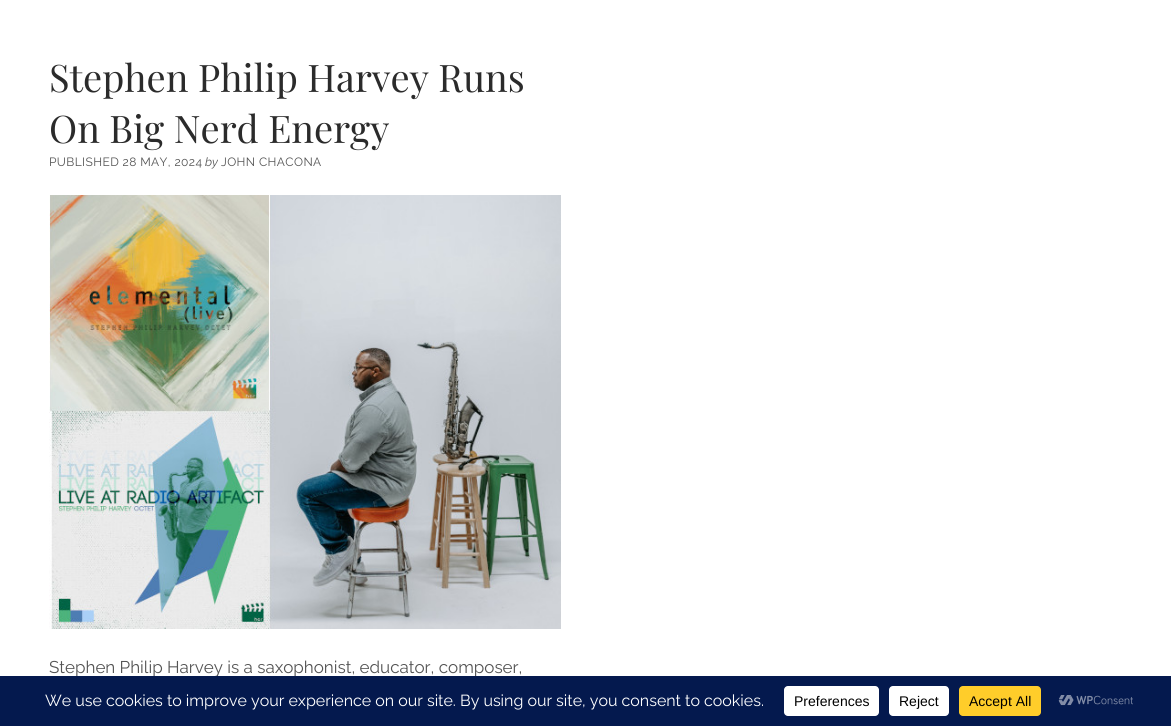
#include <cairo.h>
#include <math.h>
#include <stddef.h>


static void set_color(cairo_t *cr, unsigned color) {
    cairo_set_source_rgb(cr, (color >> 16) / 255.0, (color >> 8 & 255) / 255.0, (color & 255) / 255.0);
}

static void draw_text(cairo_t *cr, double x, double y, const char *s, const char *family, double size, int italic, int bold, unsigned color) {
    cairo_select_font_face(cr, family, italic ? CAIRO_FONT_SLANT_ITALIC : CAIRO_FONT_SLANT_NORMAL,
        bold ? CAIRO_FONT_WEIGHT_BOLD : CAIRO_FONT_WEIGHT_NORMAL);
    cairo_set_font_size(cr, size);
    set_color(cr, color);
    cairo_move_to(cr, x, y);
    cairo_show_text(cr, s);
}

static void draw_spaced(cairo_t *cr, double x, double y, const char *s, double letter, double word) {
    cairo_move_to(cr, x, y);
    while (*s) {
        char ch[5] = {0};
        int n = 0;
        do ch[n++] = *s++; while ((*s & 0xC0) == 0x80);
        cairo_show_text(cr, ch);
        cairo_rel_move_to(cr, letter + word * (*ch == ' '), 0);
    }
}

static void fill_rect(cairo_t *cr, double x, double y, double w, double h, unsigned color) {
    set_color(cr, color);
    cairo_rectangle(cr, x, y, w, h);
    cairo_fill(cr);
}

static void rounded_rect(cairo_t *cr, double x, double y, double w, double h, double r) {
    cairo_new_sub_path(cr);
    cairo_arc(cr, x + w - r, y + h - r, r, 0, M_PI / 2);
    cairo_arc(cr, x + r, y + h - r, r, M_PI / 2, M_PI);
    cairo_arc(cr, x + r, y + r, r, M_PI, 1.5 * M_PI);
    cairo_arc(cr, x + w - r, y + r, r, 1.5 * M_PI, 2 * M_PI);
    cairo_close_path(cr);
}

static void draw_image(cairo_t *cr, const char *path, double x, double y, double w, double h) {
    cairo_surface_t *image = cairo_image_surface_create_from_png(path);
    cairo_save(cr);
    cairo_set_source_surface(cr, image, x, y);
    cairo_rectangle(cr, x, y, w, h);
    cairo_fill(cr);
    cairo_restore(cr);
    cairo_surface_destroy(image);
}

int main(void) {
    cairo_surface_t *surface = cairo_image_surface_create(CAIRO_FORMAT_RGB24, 1171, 726);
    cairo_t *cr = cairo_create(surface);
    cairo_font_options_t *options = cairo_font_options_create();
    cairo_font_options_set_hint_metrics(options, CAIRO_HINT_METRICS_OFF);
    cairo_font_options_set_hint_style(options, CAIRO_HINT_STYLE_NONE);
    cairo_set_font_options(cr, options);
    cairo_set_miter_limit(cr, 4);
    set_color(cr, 0xFFFFFF);
    cairo_paint(cr);
    draw_text(cr, 49, 92, "Stephen Philip Harvey Runs", "Playfair Display", 38, 0, 0, 0x2B2B2B);
    draw_text(cr, 49, 143, "On Big Nerd Energy", "Playfair Display", 38, 0, 0, 0x2B2B2B);
    cairo_select_font_face(cr, "Raleway", CAIRO_FONT_SLANT_NORMAL, CAIRO_FONT_WEIGHT_NORMAL);
    cairo_set_font_size(cr, 12);
    set_color(cr, 0x545454);
    draw_spaced(cr, 49, 166, "PUBLISHED 28 MAY, 2024", 0.4, 0);
    draw_text(cr, 205, 166, "by", "Raleway Thin", 12, 1, 0, 0x545454);
    cairo_select_font_face(cr, "Raleway", CAIRO_FONT_SLANT_NORMAL, CAIRO_FONT_WEIGHT_NORMAL);
    draw_spaced(cr, 221, 166, "JOHN CHACONA", 0.4, 0);
    draw_image(cr, "assets/img1.png", 49, 195, 512, 434);
    draw_text(cr, 49, 673, "Stephen Philip Harvey is a saxophonist, educator, composer,", "Raleway", 17, 0, 0, 0x545454);
    fill_rect(cr, 0, 676, 1171, 50, 0x04194E);
    draw_text(cr, 45, 706, "We use cookies to improve your experience on our site. By using our site, you consent to cookies.", "Raleway", 16, 0, 0, 0xFFFFFF);
    rounded_rect(cr, 784, 686, 95, 30, 4);
    cairo_fill(cr);
    draw_text(cr, 794, 706, "Preferences", "Liberation Sans", 14, 0, 0, 0x000000);
    set_color(cr, 0xFFFFFF);
    rounded_rect(cr, 889, 686, 60, 30, 4);
    cairo_fill(cr);
    draw_text(cr, 899, 706, "Reject", "Liberation Sans", 14, 0, 0, 0x000000);
    set_color(cr, 0xFFCD2A);
    rounded_rect(cr, 959, 686, 82, 30, 4);
    cairo_fill(cr);
    draw_text(cr, 969, 706, "Accept All", "Liberation Sans", 14, 0, 0, 0x000000);
    draw_image(cr, "assets/img2.png", 1058, 695, 75, 11);
    cairo_surface_write_to_png(surface, "output.png");
    cairo_font_options_destroy(options);
    cairo_destroy(cr);
    cairo_surface_destroy(surface);
    return 0;
}
